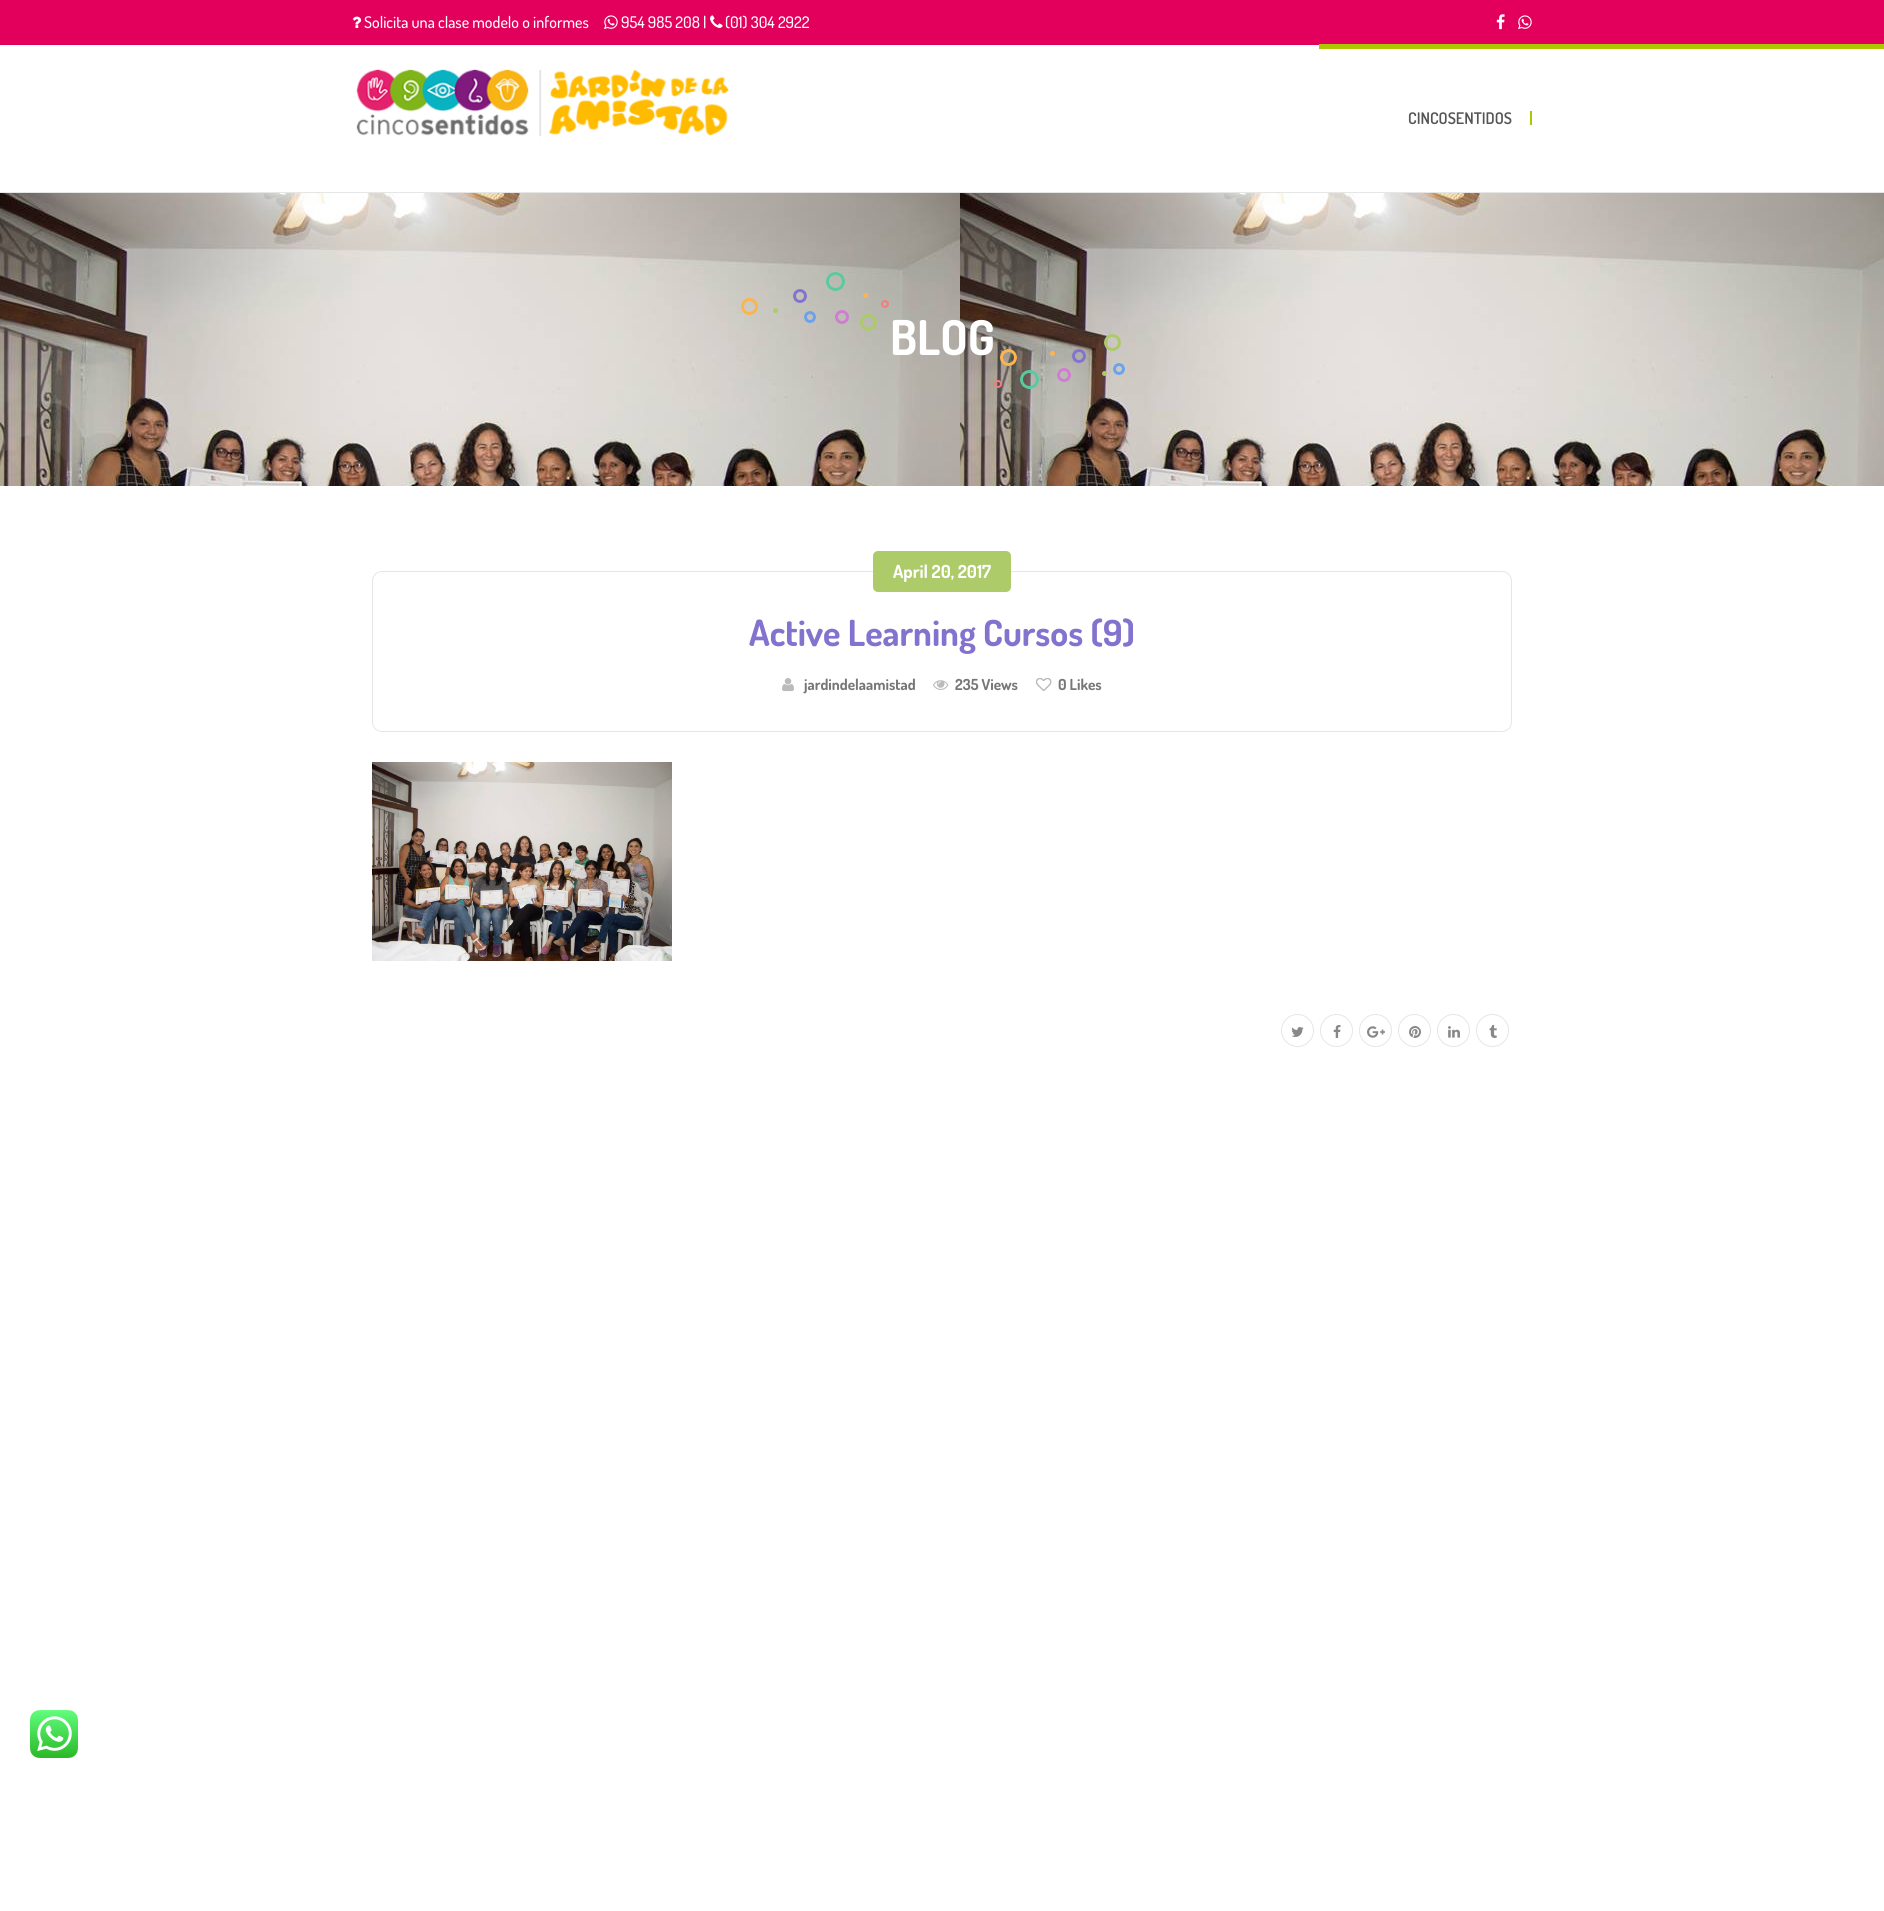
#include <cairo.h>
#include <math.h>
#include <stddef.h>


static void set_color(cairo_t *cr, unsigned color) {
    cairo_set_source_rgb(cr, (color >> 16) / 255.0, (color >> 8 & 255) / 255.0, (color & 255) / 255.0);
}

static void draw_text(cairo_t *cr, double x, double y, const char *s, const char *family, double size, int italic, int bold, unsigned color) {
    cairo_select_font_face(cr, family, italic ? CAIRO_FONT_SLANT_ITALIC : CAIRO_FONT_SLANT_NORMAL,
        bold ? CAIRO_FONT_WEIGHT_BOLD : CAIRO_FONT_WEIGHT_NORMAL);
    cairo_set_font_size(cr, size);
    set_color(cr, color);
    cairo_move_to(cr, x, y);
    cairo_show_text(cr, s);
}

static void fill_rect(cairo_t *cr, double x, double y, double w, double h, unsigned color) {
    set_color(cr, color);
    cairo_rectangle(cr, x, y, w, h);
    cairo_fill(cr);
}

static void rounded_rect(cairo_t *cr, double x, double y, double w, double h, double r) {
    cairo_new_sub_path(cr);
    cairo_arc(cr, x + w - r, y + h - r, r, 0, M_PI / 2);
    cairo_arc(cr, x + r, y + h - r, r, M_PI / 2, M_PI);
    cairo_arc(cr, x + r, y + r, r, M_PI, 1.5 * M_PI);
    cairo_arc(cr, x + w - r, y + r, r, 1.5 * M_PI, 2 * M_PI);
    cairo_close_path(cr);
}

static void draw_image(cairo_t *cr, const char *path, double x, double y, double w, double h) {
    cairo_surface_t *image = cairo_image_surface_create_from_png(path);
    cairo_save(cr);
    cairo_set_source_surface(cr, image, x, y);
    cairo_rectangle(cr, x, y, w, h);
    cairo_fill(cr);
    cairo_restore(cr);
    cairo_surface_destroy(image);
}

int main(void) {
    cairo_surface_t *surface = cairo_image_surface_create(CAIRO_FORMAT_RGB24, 1884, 1911);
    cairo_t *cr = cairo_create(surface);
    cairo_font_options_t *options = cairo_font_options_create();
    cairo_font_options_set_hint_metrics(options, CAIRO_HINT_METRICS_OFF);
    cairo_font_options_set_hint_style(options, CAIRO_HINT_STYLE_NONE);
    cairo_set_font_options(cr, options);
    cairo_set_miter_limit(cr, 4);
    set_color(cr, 0xFFFFFF);
    cairo_paint(cr);
    fill_rect(cr, 0, 192, 1884, 1, 0xE6E6E6);
    fill_rect(cr, 0, 0, 1884, 44, 0xE3005C);
    fill_rect(cr, 0, 44, 1319, 1, 0xD80057);
    draw_image(cr, "assets/img1.png", 352, 16, 10, 12);
    draw_text(cr, 364, 28, "Solicita una clase modelo o informes", "Dosis Medium", 16, 0, 0, 0xFFFFFF);
    draw_image(cr, "assets/img2.png", 604, 15, 14, 15);
    draw_text(cr, 621, 28, "954 985 208 |", "Dosis Medium", 16, 0, 0, 0xFFFFFF);
    draw_image(cr, "assets/img3.png", 710, 15, 13, 13);
    draw_text(cr, 725, 28, "(01) 304 2922", "Dosis Medium", 16, 0, 0, 0xFFFFFF);
    draw_image(cr, "assets/img4.png", 1496, 14, 9, 16);
    draw_image(cr, "assets/img2.png", 1518, 15, 14, 15);
    fill_rect(cr, 1319, 44, 565, 5, 0xAEC704);
    draw_image(cr, "assets/img5.png", 356, 69, 373, 68);
    draw_text(cr, 1408, 124, "CINCOSENTIDOS", "Dosis SemiBold", 16, 0, 0, 0x555555);
    fill_rect(cr, 1530, 111, 2, 14, 0xAEC704);
    draw_image(cr, "assets/img6.png", 0, 193, 1884, 293);
    draw_image(cr, "assets/img7.png", 741, 272, 148, 59);
    draw_text(cr, 890, 355, "BLOG", "Dosis", 48, 0, 1, 0xFFFFFF);
    draw_image(cr, "assets/img8.png", 994, 334, 131, 55);
    rounded_rect(cr, 372.5, 571.5, 1139, 160, 9.5);
    set_color(cr, 0xE6E6E6);
    cairo_set_line_width(cr, 1);
    cairo_stroke(cr);
    set_color(cr, 0xADCB69);
    rounded_rect(cr, 873, 551, 138, 41, 5);
    cairo_fill(cr);
    draw_text(cr, 893, 578, "April 20, 2017", "Dosis", 18, 0, 1, 0xFFFFFF);
    draw_text(cr, 749, 646, "Active Learning Cursos (9)", "Dosis", 36, 0, 1, 0x8373CE);
    draw_image(cr, "assets/img9.png", 782, 678, 12, 14);
    draw_text(cr, 804, 690, "jardindelaamistad", "Dosis", 15.25, 0, 1, 0x777777);
    draw_image(cr, "assets/img10.png", 933, 680, 16, 10);
    draw_text(cr, 955, 690, "235 Views", "Dosis", 15.25, 0, 1, 0x777777);
    draw_image(cr, "assets/img11.png", 1036, 678, 16, 13);
    draw_image(cr, "assets/img12.png", 1036, 678, 16, 13);
    draw_text(cr, 1058, 690, "0 Likes", "Dosis", 15.25, 0, 1, 0x777777);
    draw_image(cr, "assets/img13.png", 372, 762, 300, 199);
    cairo_arc(cr, 1297.5, 1030.5, 16, 0, 2 * M_PI);
    set_color(cr, 0xE6E6E6);
    cairo_stroke(cr);
    draw_image(cr, "assets/img14.png", 1291, 1027, 13, 10);
    cairo_arc(cr, 1336.5, 1030.5, 16, 0, 2 * M_PI);
    cairo_stroke(cr);
    draw_image(cr, "assets/img15.png", 1333, 1025, 8, 13);
    cairo_arc(cr, 1375.5, 1030.5, 16, 0, 2 * M_PI);
    cairo_stroke(cr);
    draw_image(cr, "assets/img16.png", 1367, 1026, 18, 12);
    cairo_arc(cr, 1414.5, 1030.5, 16, 0, 2 * M_PI);
    cairo_stroke(cr);
    draw_image(cr, "assets/img17.png", 1409, 1026, 12, 12);
    cairo_arc(cr, 1453.5, 1030.5, 16, 0, 2 * M_PI);
    cairo_stroke(cr);
    draw_image(cr, "assets/img18.png", 1448, 1026, 12, 12);
    cairo_arc(cr, 1492.5, 1030.5, 16, 0, 2 * M_PI);
    cairo_stroke(cr);
    draw_image(cr, "assets/img19.png", 1489, 1025, 8, 13);
    draw_image(cr, "assets/img20.png", 30, 1710, 48, 48);
    cairo_surface_write_to_png(surface, "output.png");
    cairo_font_options_destroy(options);
    cairo_destroy(cr);
    cairo_surface_destroy(surface);
    return 0;
}
